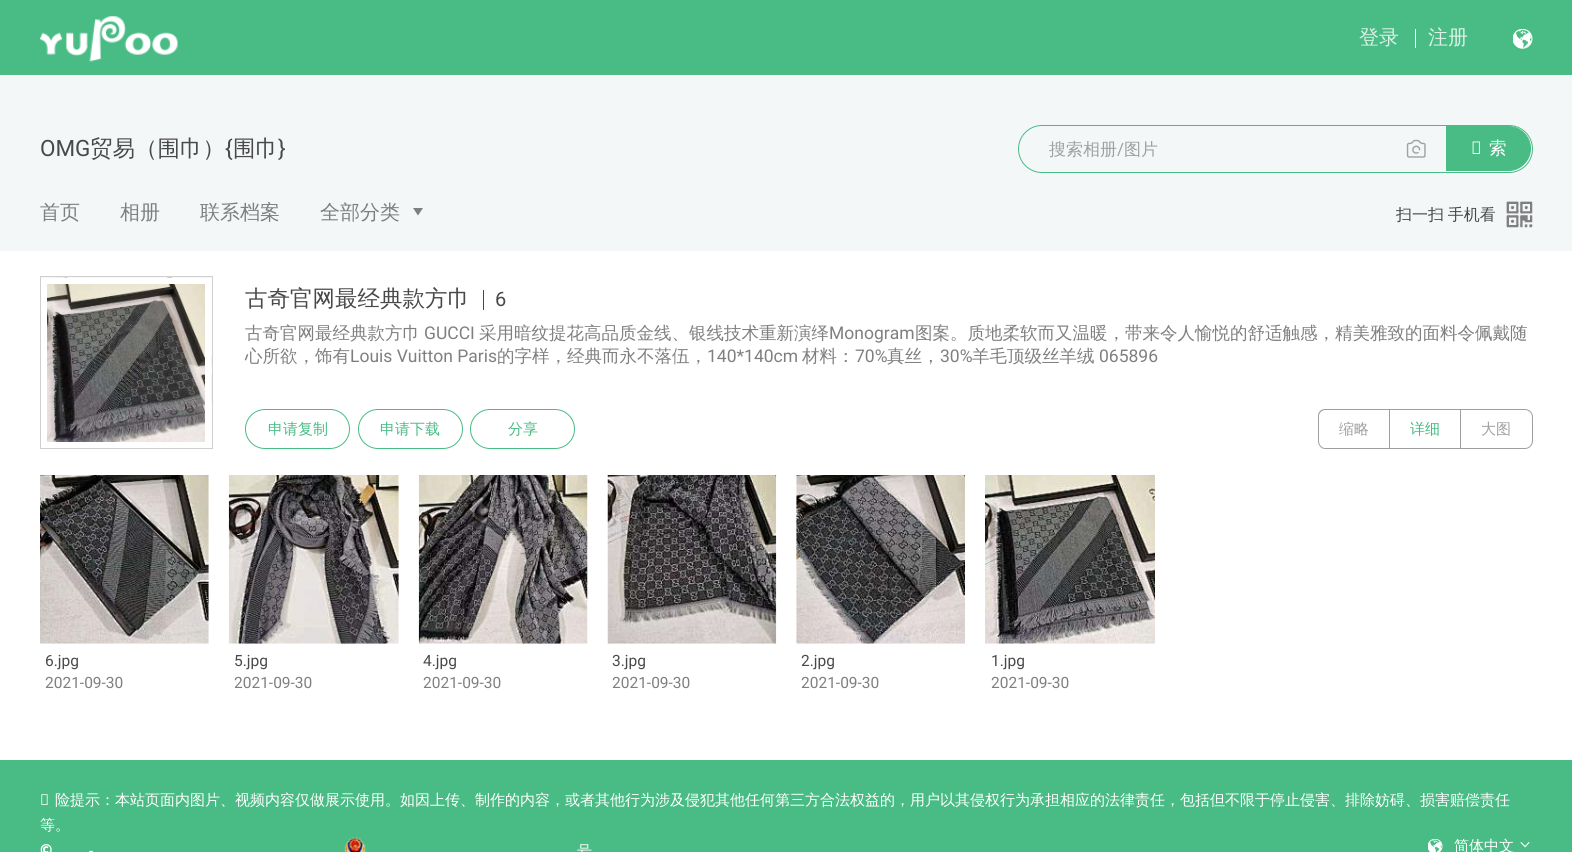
#include <cairo.h>
#include <math.h>
#include <stddef.h>


static void set_color(cairo_t *cr, unsigned color) {
    cairo_set_source_rgb(cr, (color >> 16) / 255.0, (color >> 8 & 255) / 255.0, (color & 255) / 255.0);
}

static void draw_text(cairo_t *cr, double x, double y, const char *s, const char *family, double size, int italic, int bold, unsigned color) {
    cairo_select_font_face(cr, family, italic ? CAIRO_FONT_SLANT_ITALIC : CAIRO_FONT_SLANT_NORMAL,
        bold ? CAIRO_FONT_WEIGHT_BOLD : CAIRO_FONT_WEIGHT_NORMAL);
    cairo_set_font_size(cr, size);
    set_color(cr, color);
    cairo_move_to(cr, x, y);
    cairo_show_text(cr, s);
}

static void draw_spaced(cairo_t *cr, double x, double y, const char *s, double letter, double word) {
    cairo_move_to(cr, x, y);
    while (*s) {
        char ch[5] = {0};
        int n = 0;
        do ch[n++] = *s++; while ((*s & 0xC0) == 0x80);
        cairo_show_text(cr, ch);
        cairo_rel_move_to(cr, letter + word * (*ch == ' '), 0);
    }
}

static void fill_rect(cairo_t *cr, double x, double y, double w, double h, unsigned color) {
    set_color(cr, color);
    cairo_rectangle(cr, x, y, w, h);
    cairo_fill(cr);
}

static void rounded_rect(cairo_t *cr, double x, double y, double w, double h, double r) {
    cairo_new_sub_path(cr);
    cairo_arc(cr, x + w - r, y + h - r, r, 0, M_PI / 2);
    cairo_arc(cr, x + r, y + h - r, r, M_PI / 2, M_PI);
    cairo_arc(cr, x + r, y + r, r, M_PI, 1.5 * M_PI);
    cairo_arc(cr, x + w - r, y + r, r, 1.5 * M_PI, 2 * M_PI);
    cairo_close_path(cr);
}

static void draw_image(cairo_t *cr, const char *path, double x, double y, double w, double h) {
    cairo_surface_t *image = cairo_image_surface_create_from_png(path);
    cairo_save(cr);
    cairo_set_source_surface(cr, image, x, y);
    cairo_rectangle(cr, x, y, w, h);
    cairo_fill(cr);
    cairo_restore(cr);
    cairo_surface_destroy(image);
}

int main(void) {
    cairo_surface_t *surface = cairo_image_surface_create(CAIRO_FORMAT_RGB24, 1572, 852);
    cairo_t *cr = cairo_create(surface);
    cairo_font_options_t *options = cairo_font_options_create();
    cairo_font_options_set_hint_metrics(options, CAIRO_HINT_METRICS_OFF);
    cairo_font_options_set_hint_style(options, CAIRO_HINT_STYLE_NONE);
    cairo_set_font_options(cr, options);
    cairo_set_miter_limit(cr, 4);
    set_color(cr, 0xFFFFFF);
    cairo_paint(cr);
    fill_rect(cr, 0, 0, 1572, 75, 0x49BC85);
    draw_image(cr, "assets/img1.png", 40, 16, 138, 46);
    draw_text(cr, 1359, 44, "登录", "WenQuanYi Zen Hei Medium", 20, 0, 0, 0xDBF2E7);
    fill_rect(cr, 1415, 29, 1, 19, 0xFFFFFF);
    draw_text(cr, 1428, 44, "注册", "WenQuanYi Zen Hei Medium", 20, 0, 0, 0xDBF2E7);
    draw_image(cr, "assets/img2.png", 1513, 29, 20, 20);
    fill_rect(cr, 0, 75, 1572, 176, 0xF3F7F7);
    draw_text(cr, 40, 156, "OMG", "Roboto", 22.5, 0, 0, 0x494949);
    draw_text(cr, 90, 156, "贸易（围巾）", "WenQuanYi Zen Hei Medium", 22.5, 0, 0, 0x494949);
    draw_text(cr, 225, 156, "{", "Roboto", 22.5, 0, 0, 0x494949);
    draw_text(cr, 233, 156, "围巾", "WenQuanYi Zen Hei Medium", 22.5, 0, 0, 0x494949);
    draw_text(cr, 278, 156, "}", "Roboto", 22.5, 0, 0, 0x494949);
    rounded_rect(cr, 1018.5, 125.5, 514, 47, 23.5);
    set_color(cr, 0x49BC85);
    cairo_set_line_width(cr, 1);
    cairo_stroke(cr);
    draw_text(cr, 1049, 155, "搜索相册", "WenQuanYi Zen Hei Medium", 17, 0, 0, 0x9F9F9F);
    draw_text(cr, 1117, 155, "/", "Roboto", 17, 0, 0, 0x9F9F9F);
    draw_text(cr, 1124, 155, "图片", "WenQuanYi Zen Hei Medium", 17, 0, 0, 0x9F9F9F);
    draw_image(cr, "assets/img3.png", 1406, 139, 20, 19);
    set_color(cr, 0x49BC85);
    cairo_new_path(cr);
    cairo_move_to(cr, 1446.5, 126.5);
    cairo_line_to(cr, 1508.5, 126.5);
    cairo_curve_to(cr, 1520.5, 126.5, 1530.5, 136.5, 1530.5, 148.5);
    cairo_curve_to(cr, 1530.5, 160.5, 1520.5, 170.5, 1508.5, 170.5);
    cairo_line_to(cr, 1446.5, 170.5);
    cairo_close_path(cr);
    cairo_fill_preserve(cr);
    cairo_stroke(cr);
    draw_text(cr, 1471, 154, "搜", "Noto Sans", 17.5, 0, 0, 0xFFFFFF);
    draw_text(cr, 1489, 154, "索", "WenQuanYi Zen Hei Medium", 17.5, 0, 0, 0xFFFFFF);
    draw_text(cr, 40, 219, "首页", "WenQuanYi Zen Hei Medium", 20, 0, 0, 0x7F7F7F);
    draw_text(cr, 120, 219, "相册", "WenQuanYi Zen Hei Medium", 20, 0, 0, 0x7F7F7F);
    draw_text(cr, 200, 219, "联系档案", "WenQuanYi Zen Hei Medium", 20, 0, 0, 0x7F7F7F);
    draw_text(cr, 320, 219, "全部分类", "WenQuanYi Zen Hei Medium", 20, 0, 0, 0x7F7F7F);
    cairo_new_path(cr);
    cairo_move_to(cr, 418, 215.5);
    cairo_line_to(cr, 413, 208);
    cairo_line_to(cr, 423, 208);
    cairo_close_path(cr);
    cairo_fill(cr);
    cairo_set_font_size(cr, 16);
    set_color(cr, 0x494949);
    draw_spaced(cr, 1396, 220, "扫一扫 手机看", 0, -1);
    draw_image(cr, "assets/img4.png", 1506, 201, 27, 27);
    cairo_rectangle(cr, 40.5, 276.5, 172, 172);
    set_color(cr, 0xCFCFCF);
    cairo_stroke(cr);
    draw_image(cr, "assets/img5.png", 41, 277, 171, 170);
    cairo_rectangle(cr, 44, 281, 164, 164);
    set_color(cr, 0xFFFFFF);
    cairo_set_line_width(cr, 6);
    cairo_stroke(cr);
    draw_text(cr, 245, 306, "古奇官网最经典款方巾", "WenQuanYi Zen Hei Medium", 22.5, 0, 0, 0x494949);
    fill_rect(cr, 483, 290, 1, 20, 0x494949);
    draw_text(cr, 495, 306, "6", "Roboto", 20, 0, 0, 0x494949);
    draw_text(cr, 245, 339, "古奇官网最经典款方巾", "WenQuanYi Zen Hei Medium", 17.5, 0, 0, 0x7F7F7F);
    draw_text(cr, 424, 339, "GUCCI", "Roboto", 17.5, 0, 0, 0x7F7F7F);
    draw_text(cr, 479, 339, "采用暗纹提花高品质金线、银线技术重新演绎", "WenQuanYi Zen Hei Medium", 17.5, 0, 0, 0x7F7F7F);
    draw_text(cr, 829, 339, "Monogram", "Roboto", 17.5, 0, 0, 0x7F7F7F);
    draw_text(cr, 915, 339, "图案。质地柔软而又温暖，带来令人愉悦的舒适触感，精美雅致的面料令佩戴随", "WenQuanYi Zen Hei Medium", 17.5, 0, 0, 0x7F7F7F);
    draw_text(cr, 245, 362, "心所欲，饰有", "WenQuanYi Zen Hei Medium", 17.5, 0, 0, 0x7F7F7F);
    draw_text(cr, 350, 362, "Louis Vuitton Paris", "Roboto", 17.5, 0, 0, 0x7F7F7F);
    draw_text(cr, 497, 362, "的字样，经典而永不落伍，", "WenQuanYi Zen Hei Medium", 17.5, 0, 0, 0x7F7F7F);
    draw_text(cr, 707, 362, "140*140cm", "Roboto", 17.5, 0, 0, 0x7F7F7F);
    draw_text(cr, 802, 362, "材料：", "WenQuanYi Zen Hei Medium", 17.5, 0, 0, 0x7F7F7F);
    draw_text(cr, 855, 362, "70%", "Roboto", 17.5, 0, 0, 0x7F7F7F);
    draw_text(cr, 887, 362, "真丝，", "WenQuanYi Zen Hei Medium", 17.5, 0, 0, 0x7F7F7F);
    draw_text(cr, 940, 362, "30%", "Roboto", 17.5, 0, 0, 0x7F7F7F);
    draw_text(cr, 972, 362, "羊毛顶级丝羊绒", "WenQuanYi Zen Hei Medium", 17.5, 0, 0, 0x7F7F7F);
    draw_text(cr, 1099, 362, "065896", "Roboto", 17.5, 0, 0, 0x7F7F7F);
    rounded_rect(cr, 245.5, 409.5, 104, 39, 19.5);
    set_color(cr, 0x49BC85);
    cairo_set_line_width(cr, 1);
    cairo_stroke(cr);
    draw_text(cr, 268, 434, "申请复制", "WenQuanYi Zen Hei Medium", 15, 0, 0, 0x49BC85);
    rounded_rect(cr, 358.5, 409.5, 104, 39, 19.5);
    cairo_stroke(cr);
    draw_text(cr, 380, 434, "申请下载", "WenQuanYi Zen Hei Medium", 15, 0, 0, 0x49BC85);
    rounded_rect(cr, 470.5, 409.5, 104, 39, 19.5);
    cairo_stroke(cr);
    draw_text(cr, 508, 434, "分享", "WenQuanYi Zen Hei Medium", 15, 0, 0, 0x49BC85);
    set_color(cr, 0x9F9F9F);
    cairo_set_fill_rule(cr, CAIRO_FILL_RULE_EVEN_ODD);
    cairo_new_path(cr);
    cairo_move_to(cr, 1325, 409);
    cairo_line_to(cr, 1389, 409);
    cairo_line_to(cr, 1389, 449);
    cairo_line_to(cr, 1325, 449);
    cairo_curve_to(cr, 1321, 449, 1318, 445, 1318, 441);
    cairo_line_to(cr, 1318, 416);
    cairo_curve_to(cr, 1318, 412, 1321, 409, 1325, 409);
    cairo_close_path(cr);
    cairo_move_to(cr, 1325, 410);
    cairo_line_to(cr, 1389, 410);
    cairo_line_to(cr, 1389, 448);
    cairo_line_to(cr, 1325, 448);
    cairo_curve_to(cr, 1322, 448, 1319, 445, 1319, 441);
    cairo_line_to(cr, 1319, 416);
    cairo_curve_to(cr, 1319, 413, 1322, 410, 1325, 410);
    cairo_close_path(cr);
    cairo_fill(cr);
    draw_text(cr, 1339, 434, "缩略", "WenQuanYi Zen Hei Medium", 15, 0, 0, 0x9F9F9F);
    fill_rect(cr, 1389, 409, 71, 1, 0x9F9F9F);
    fill_rect(cr, 1389, 448, 71, 1, 0x9F9F9F);
    fill_rect(cr, 1389, 409, 1, 40, 0x9F9F9F);
    draw_text(cr, 1410, 434, "详细", "WenQuanYi Zen Hei Medium", 15, 0, 0, 0x49BC85);
    cairo_new_path(cr);
    cairo_move_to(cr, 1460.5, 409.5);
    cairo_line_to(cr, 1525, 409.5);
    cairo_curve_to(cr, 1529, 409.5, 1532.5, 413, 1532.5, 417);
    cairo_line_to(cr, 1532.5, 441);
    cairo_curve_to(cr, 1532.5, 445, 1529, 448.5, 1525, 448.5);
    cairo_line_to(cr, 1460.5, 448.5);
    cairo_close_path(cr);
    set_color(cr, 0x9F9F9F);
    cairo_stroke(cr);
    draw_text(cr, 1481, 434, "大图", "WenQuanYi Zen Hei Medium", 15, 0, 0, 0x9F9F9F);
    draw_image(cr, "assets/img6.png", 40, 475, 169, 169);
    draw_text(cr, 45, 666, "6.jpg", "Roboto", 15.5, 0, 0, 0x494949);
    draw_text(cr, 45, 688, "2021-09-30", "Roboto", 15.5, 0, 0, 0x7F7F7F);
    draw_image(cr, "assets/img7.png", 228, 475, 171, 169);
    draw_text(cr, 234, 666, "5.jpg", "Roboto", 15.5, 0, 0, 0x494949);
    draw_text(cr, 234, 688, "2021-09-30", "Roboto", 15.5, 0, 0, 0x7F7F7F);
    draw_image(cr, "assets/img8.png", 418, 475, 170, 169);
    draw_text(cr, 423, 666, "4.jpg", "Roboto", 15.5, 0, 0, 0x494949);
    draw_text(cr, 423, 688, "2021-09-30", "Roboto", 15.5, 0, 0, 0x7F7F7F);
    draw_image(cr, "assets/img9.png", 607, 475, 170, 169);
    draw_text(cr, 612, 666, "3.jpg", "Roboto", 15.5, 0, 0, 0x494949);
    draw_text(cr, 612, 688, "2021-09-30", "Roboto", 15.5, 0, 0, 0x7F7F7F);
    draw_image(cr, "assets/img10.png", 796, 475, 169, 169);
    draw_text(cr, 801, 666, "2.jpg", "Roboto", 15.5, 0, 0, 0x494949);
    draw_text(cr, 801, 688, "2021-09-30", "Roboto", 15.5, 0, 0, 0x7F7F7F);
    draw_image(cr, "assets/img11.png", 985, 475, 170, 169);
    draw_text(cr, 991, 666, "1.jpg", "Roboto", 15.5, 0, 0, 0x494949);
    draw_text(cr, 991, 688, "2021-09-30", "Roboto", 15.5, 0, 0, 0x7F7F7F);
    fill_rect(cr, 0, 760, 1572, 92, 0x49BC85);
    draw_text(cr, 40, 805, "风", "Noto Sans", 15, 0, 0, 0xFFFFFF);
    draw_text(cr, 55, 805, "险提示：本站页面内图片、视频内容仅做展示使用。如因上传、制作的内容，或者其他行为涉及侵犯其他任何第三方合法权益的，用户以其侵权行为承担相应的法律责任，包括但不限于停止侵害、排除妨碍、损害赔偿责任", "WenQuanYi Zen Hei Medium", 15, 0, 0, 0xFFFFFF);
    draw_text(cr, 40, 830, "等。", "WenQuanYi Zen Hei Medium", 15, 0, 0, 0xFFFFFF);
    draw_text(cr, 40, 855, "©", "Noto Sans Black", 15, 0, 0, 0xFFFFFF);
    draw_text(cr, 89, 856, "-", "Roboto", 15, 0, 0, 0xFFFFFF);
    draw_image(cr, "assets/img12.png", 344, 837, 22, 15);
    draw_text(cr, 577, 856, "号", "WenQuanYi Zen Hei Medium", 15, 0, 0, 0xFFFFFF);
    draw_image(cr, "assets/img13.png", 1428, 839, 15, 13);
    draw_text(cr, 1454, 851, "简体中文", "WenQuanYi Zen Hei Medium", 15, 0, 0, 0xFFFFFF);
    draw_image(cr, "assets/img14.png", 1520, 842, 10, 6);
    cairo_surface_write_to_png(surface, "output.png");
    cairo_font_options_destroy(options);
    cairo_destroy(cr);
    cairo_surface_destroy(surface);
    return 0;
}
